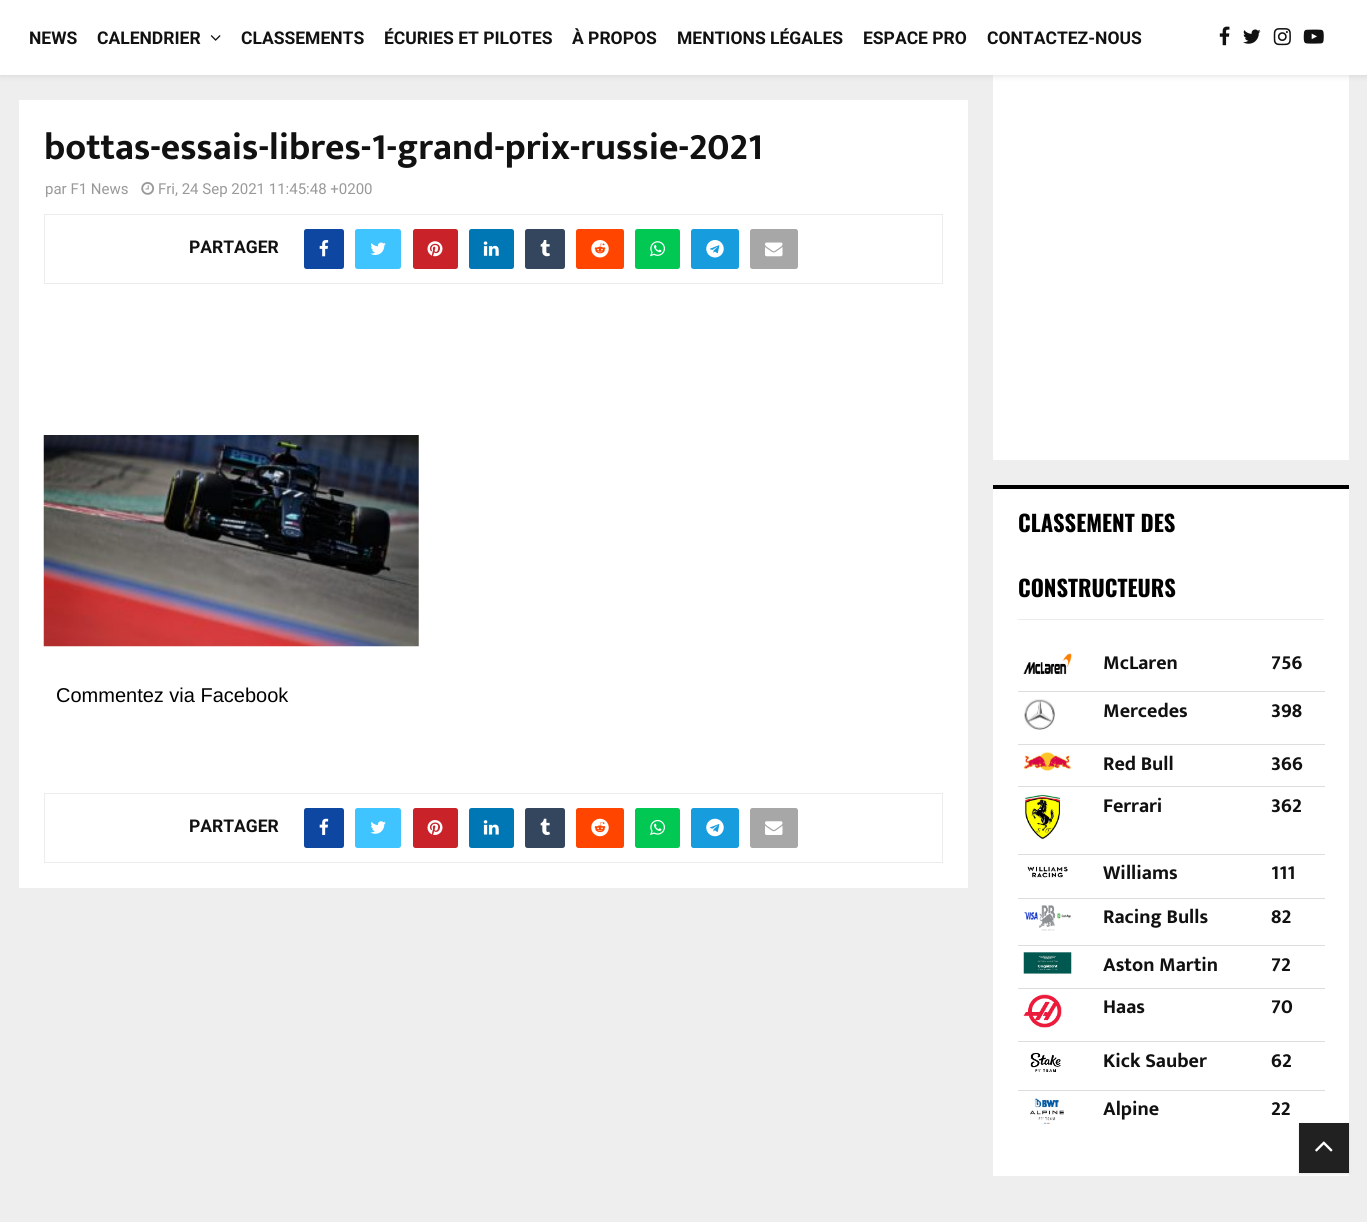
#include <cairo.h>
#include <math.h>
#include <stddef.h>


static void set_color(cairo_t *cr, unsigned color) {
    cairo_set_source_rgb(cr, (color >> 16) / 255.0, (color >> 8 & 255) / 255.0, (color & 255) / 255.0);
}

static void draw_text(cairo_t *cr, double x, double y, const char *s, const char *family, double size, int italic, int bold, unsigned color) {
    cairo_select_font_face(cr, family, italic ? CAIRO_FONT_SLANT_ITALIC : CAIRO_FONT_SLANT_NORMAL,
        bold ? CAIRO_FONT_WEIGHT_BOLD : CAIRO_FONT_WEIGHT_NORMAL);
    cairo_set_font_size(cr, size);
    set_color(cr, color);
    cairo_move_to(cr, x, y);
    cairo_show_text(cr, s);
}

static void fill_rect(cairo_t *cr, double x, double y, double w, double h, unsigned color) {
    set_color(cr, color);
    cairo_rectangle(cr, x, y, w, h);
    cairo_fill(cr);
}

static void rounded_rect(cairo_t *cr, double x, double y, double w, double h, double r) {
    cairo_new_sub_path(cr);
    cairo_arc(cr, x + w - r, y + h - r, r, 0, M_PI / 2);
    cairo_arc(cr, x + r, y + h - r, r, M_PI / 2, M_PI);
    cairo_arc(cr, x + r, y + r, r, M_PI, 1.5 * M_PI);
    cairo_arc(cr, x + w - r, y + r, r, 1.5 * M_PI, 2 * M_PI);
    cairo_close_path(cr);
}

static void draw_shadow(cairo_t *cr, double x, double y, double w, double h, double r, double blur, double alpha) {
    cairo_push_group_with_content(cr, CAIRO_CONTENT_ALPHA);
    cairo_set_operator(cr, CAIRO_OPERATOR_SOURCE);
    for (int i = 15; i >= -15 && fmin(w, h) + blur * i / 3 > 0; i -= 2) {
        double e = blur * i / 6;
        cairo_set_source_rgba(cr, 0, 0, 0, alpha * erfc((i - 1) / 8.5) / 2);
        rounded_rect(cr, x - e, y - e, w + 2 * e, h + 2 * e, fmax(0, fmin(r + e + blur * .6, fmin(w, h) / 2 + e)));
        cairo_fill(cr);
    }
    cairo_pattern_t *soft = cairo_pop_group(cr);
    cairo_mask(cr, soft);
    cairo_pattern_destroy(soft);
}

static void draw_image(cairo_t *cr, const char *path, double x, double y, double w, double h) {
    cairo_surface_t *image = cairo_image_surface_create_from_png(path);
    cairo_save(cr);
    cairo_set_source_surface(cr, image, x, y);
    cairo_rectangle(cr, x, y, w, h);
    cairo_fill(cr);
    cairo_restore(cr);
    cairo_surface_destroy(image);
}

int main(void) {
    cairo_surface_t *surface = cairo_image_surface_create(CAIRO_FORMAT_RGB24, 1367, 1222);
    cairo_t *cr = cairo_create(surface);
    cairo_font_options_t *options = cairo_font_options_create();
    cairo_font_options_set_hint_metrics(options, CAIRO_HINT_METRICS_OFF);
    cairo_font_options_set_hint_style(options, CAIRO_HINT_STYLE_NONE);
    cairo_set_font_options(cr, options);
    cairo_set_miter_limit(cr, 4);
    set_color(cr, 0xEEEEEE);
    cairo_paint(cr);
    fill_rect(cr, 993, 75, 356, 385, 0xFFFFFF);
    set_color(cr, 0xBEBEBE);
    draw_shadow(cr, 0, 1, 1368, 75, 0, 3, 0.46);
    fill_rect(cr, 0, 0, 1367, 75, 0xFFFFFF);
    draw_text(cr, 29, 44, "NEWS", "Roboto", 17.5, 0, 1, 0x111111);
    draw_text(cr, 97, 44, "CALENDRIER", "Roboto", 17.5, 0, 1, 0x111111);
    draw_image(cr, "assets/img1.png", 210, 35, 11, 6);
    draw_text(cr, 241, 44, "CLASSEMENTS", "Roboto", 17.5, 0, 1, 0x111111);
    draw_text(cr, 384, 44, "ÉCURIES ET PILOTES", "Roboto", 17.5, 0, 1, 0x111111);
    draw_text(cr, 572, 44, "À PROPOS", "Roboto", 17.5, 0, 1, 0x111111);
    draw_text(cr, 677, 44, "MENTIONS LÉGALES", "Roboto", 17.5, 0, 1, 0x111111);
    draw_text(cr, 863, 44, "ESPACE PRO", "Roboto", 17.5, 0, 1, 0x111111);
    draw_text(cr, 987, 44, "CONTACTEZ-NOUS", "Roboto", 17.5, 0, 1, 0x111111);
    draw_image(cr, "assets/img2.png", 1219, 26, 11, 20);
    draw_image(cr, "assets/img3.png", 1243, 29, 18, 15);
    draw_image(cr, "assets/img4.png", 1273, 28, 18, 18);
    draw_image(cr, "assets/img5.png", 1303, 29, 21, 15);
    fill_rect(cr, 19, 100, 949, 788, 0xFFFFFF);
    draw_text(cr, 44, 159, "bottas-essais-libres-1-grand-prix-russie-2021", "Mukta Vaani", 37.5, 0, 1, 0x111111);
    draw_text(cr, 45, 194, "par F1 News", "Roboto", 15, 0, 0, 0x999999);
    draw_image(cr, "assets/img6.png", 141, 182, 14, 13);
    draw_text(cr, 158, 194, "Fri, 24 Sep 2021 11:45:48 +0200", "Roboto", 15, 0, 0, 0x999999);
    cairo_rectangle(cr, 44.5, 214.5, 898, 69);
    set_color(cr, 0xECECEC);
    cairo_set_line_width(cr, 1);
    cairo_stroke(cr);
    draw_text(cr, 189, 253, "PARTAGER", "Roboto", 17.5, 0, 1, 0x111111);
    set_color(cr, 0x0D47A1);
    rounded_rect(cr, 304, 229, 40, 40, 2.5);
    cairo_fill(cr);
    draw_image(cr, "assets/img7.png", 319, 240, 10, 17);
    set_color(cr, 0x40C4FF);
    rounded_rect(cr, 355, 229, 46, 40, 2.5);
    cairo_fill(cr);
    draw_image(cr, "assets/img8.png", 370, 242, 16, 13);
    set_color(cr, 0xC92228);
    rounded_rect(cr, 413, 229, 45, 40, 2.5);
    cairo_fill(cr);
    draw_image(cr, "assets/img9.png", 427, 241, 16, 16);
    set_color(cr, 0x0077B5);
    rounded_rect(cr, 469, 229, 45, 40, 2.5);
    cairo_fill(cr);
    draw_image(cr, "assets/img10.png", 483, 241, 16, 15);
    set_color(cr, 0x34465D);
    rounded_rect(cr, 525, 229, 40, 40, 2.5);
    cairo_fill(cr);
    draw_image(cr, "assets/img11.png", 540, 240, 10, 17);
    set_color(cr, 0xFF4500);
    rounded_rect(cr, 576, 229, 48, 40, 2.5);
    cairo_fill(cr);
    draw_image(cr, "assets/img12.png", 591, 240, 18, 18);
    set_color(cr, 0x00C853);
    rounded_rect(cr, 635, 229, 45, 40, 2.5);
    cairo_fill(cr);
    draw_image(cr, "assets/img13.png", 650, 241, 15, 16);
    set_color(cr, 0x179CDE);
    rounded_rect(cr, 691, 229, 48, 40, 2.5);
    cairo_fill(cr);
    draw_image(cr, "assets/img14.png", 706, 240, 18, 18);
    set_color(cr, 0xA7A7A7);
    rounded_rect(cr, 750, 229, 48, 40, 2.5);
    cairo_fill(cr);
    draw_image(cr, "assets/img15.png", 765, 242, 18, 15);
    draw_image(cr, "assets/img16.png", 43, 435, 376, 212);
    draw_text(cr, 56, 702, "Commentez via Facebook", "Liberation Sans", 20, 0, 0, 0x000000);
    cairo_rectangle(cr, 44.5, 793.5, 898, 69);
    set_color(cr, 0xECECEC);
    cairo_stroke(cr);
    draw_text(cr, 189, 832, "PARTAGER", "Roboto", 17.5, 0, 1, 0x111111);
    set_color(cr, 0x0D47A1);
    rounded_rect(cr, 304, 808, 40, 40, 2.5);
    cairo_fill(cr);
    draw_image(cr, "assets/img17.png", 319, 818, 10, 17);
    set_color(cr, 0x40C4FF);
    rounded_rect(cr, 355, 808, 46, 40, 2.5);
    cairo_fill(cr);
    draw_image(cr, "assets/img18.png", 370, 821, 16, 13);
    set_color(cr, 0xC92228);
    rounded_rect(cr, 413, 808, 45, 40, 2.5);
    cairo_fill(cr);
    draw_image(cr, "assets/img19.png", 427, 820, 16, 15);
    set_color(cr, 0x0077B5);
    rounded_rect(cr, 469, 808, 45, 40, 2.5);
    cairo_fill(cr);
    draw_image(cr, "assets/img20.png", 483, 820, 16, 15);
    set_color(cr, 0x34465D);
    rounded_rect(cr, 525, 808, 40, 40, 2.5);
    cairo_fill(cr);
    draw_image(cr, "assets/img21.png", 540, 818, 10, 17);
    set_color(cr, 0xFF4500);
    rounded_rect(cr, 576, 808, 48, 40, 2.5);
    cairo_fill(cr);
    draw_image(cr, "assets/img22.png", 591, 818, 18, 19);
    set_color(cr, 0x00C853);
    rounded_rect(cr, 635, 808, 45, 40, 2.5);
    cairo_fill(cr);
    draw_image(cr, "assets/img23.png", 650, 819, 15, 16);
    set_color(cr, 0x179CDE);
    rounded_rect(cr, 691, 808, 48, 40, 2.5);
    cairo_fill(cr);
    draw_image(cr, "assets/img24.png", 706, 818, 18, 19);
    set_color(cr, 0xA7A7A7);
    rounded_rect(cr, 750, 808, 48, 40, 2.5);
    cairo_fill(cr);
    draw_image(cr, "assets/img25.png", 765, 821, 18, 14);
    fill_rect(cr, 993, 489, 356, 687, 0xFFFFFF);
    fill_rect(cr, 1018, 619, 306, 1, 0xECECEC);
    fill_rect(cr, 993, 485, 356, 4, 0x000000);
    draw_text(cr, 1018, 532, "CLASSEMENT DES", "Oswald", 22.5, 0, 1, 0x000000);
    draw_text(cr, 1018, 597, "CONSTRUCTEURS", "Oswald", 22.5, 0, 1, 0x000000);
    draw_image(cr, "assets/img26.png", 1023, 653, 49, 22);
    draw_text(cr, 1103, 669, "McLaren", "Mukta Vaani", 20, 0, 1, 0x111111);
    draw_text(cr, 1271, 669, "756", "Mukta Vaani", 20, 0, 1, 0x111111);
    draw_image(cr, "assets/img27.png", 1024, 699, 31, 31);
    draw_text(cr, 1103, 717, "Mercedes", "Mukta Vaani", 20, 0, 1, 0x111111);
    fill_rect(cr, 1018, 691, 307, 1, 0xDDDDDD);
    draw_text(cr, 1271, 717, "398", "Mukta Vaani", 20, 0, 1, 0x111111);
    draw_image(cr, "assets/img28.png", 1023, 752, 49, 19);
    draw_text(cr, 1103, 770, "Red Bull", "Mukta Vaani", 20, 0, 1, 0x111111);
    fill_rect(cr, 1018, 744, 307, 1, 0xDDDDDD);
    draw_text(cr, 1271, 770, "366", "Mukta Vaani", 20, 0, 1, 0x111111);
    draw_image(cr, "assets/img29.png", 1025, 794, 36, 46);
    draw_text(cr, 1103, 812, "Ferrari", "Mukta Vaani", 20, 0, 1, 0x111111);
    fill_rect(cr, 1018, 786, 307, 1, 0xDDDDDD);
    draw_text(cr, 1271, 812, "362", "Mukta Vaani", 20, 0, 1, 0x111111);
    draw_image(cr, "assets/img30.png", 1027, 866, 41, 12);
    draw_text(cr, 1103, 879, "Williams", "Mukta Vaani", 20, 0, 1, 0x111111);
    fill_rect(cr, 1018, 854, 307, 1, 0xDDDDDD);
    draw_text(cr, 1271, 879, "111", "Mukta Vaani", 20, 0, 1, 0x111111);
    draw_image(cr, "assets/img31.png", 1024, 905, 48, 26);
    draw_text(cr, 1103, 923, "Racing Bulls", "Mukta Vaani", 20, 0, 1, 0x111111);
    fill_rect(cr, 1018, 898, 307, 1, 0xDDDDDD);
    draw_text(cr, 1271, 923, "82", "Mukta Vaani", 20, 0, 1, 0x111111);
    draw_image(cr, "assets/img32.png", 1023, 952, 49, 22);
    draw_text(cr, 1103, 971, "Aston Martin", "Mukta Vaani", 20, 0, 1, 0x111111);
    fill_rect(cr, 1018, 945, 307, 1, 0xDDDDDD);
    draw_text(cr, 1271, 971, "72", "Mukta Vaani", 20, 0, 1, 0x111111);
    draw_image(cr, "assets/img33.png", 1023, 994, 39, 34);
    draw_text(cr, 1103, 1013, "Haas", "Mukta Vaani", 20, 0, 1, 0x111111);
    fill_rect(cr, 1018, 988, 307, 1, 0xDDDDDD);
    draw_text(cr, 1271, 1013, "70", "Mukta Vaani", 20, 0, 1, 0x111111);
    draw_image(cr, "assets/img34.png", 1030, 1052, 31, 20);
    draw_text(cr, 1103, 1067, "Kick Sauber", "Mukta Vaani", 20, 0, 1, 0x111111);
    fill_rect(cr, 1018, 1041, 307, 1, 0xDDDDDD);
    draw_text(cr, 1271, 1067, "62", "Mukta Vaani", 20, 0, 1, 0x111111);
    draw_image(cr, "assets/img35.png", 1030, 1098, 34, 26);
    draw_text(cr, 1103, 1115, "Alpine", "Mukta Vaani", 20, 0, 1, 0x111111);
    fill_rect(cr, 1018, 1090, 307, 1, 0xDDDDDD);
    draw_text(cr, 1271, 1115, "22", "Mukta Vaani", 20, 0, 1, 0x111111);
    set_color(cr, 0x000000);
    draw_shadow(cr, 1299, 1124, 50, 50, 0, 1, 0.1);
    fill_rect(cr, 1299, 1123, 50, 50, 0x212121);
    draw_image(cr, "assets/img36.png", 1315, 1141, 18, 11);
    cairo_surface_write_to_png(surface, "output.png");
    cairo_font_options_destroy(options);
    cairo_destroy(cr);
    cairo_surface_destroy(surface);
    return 0;
}
